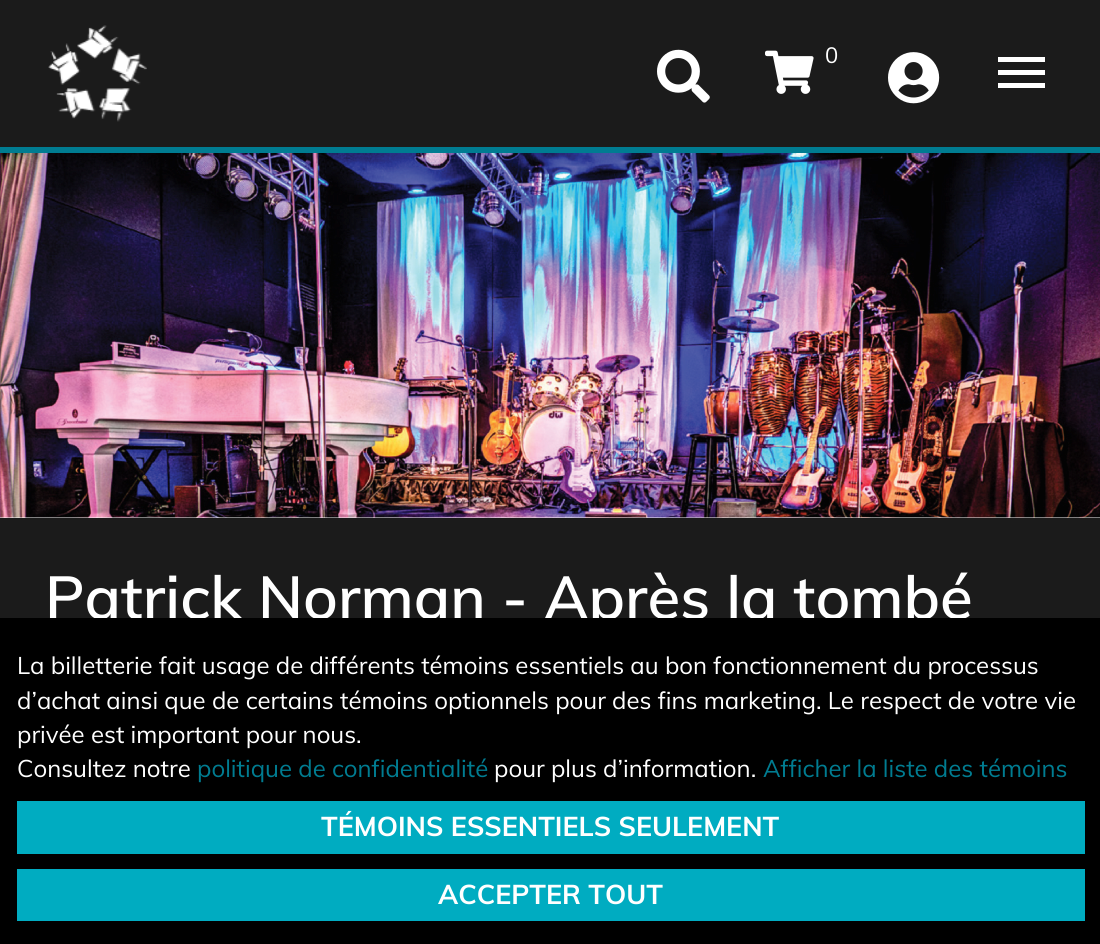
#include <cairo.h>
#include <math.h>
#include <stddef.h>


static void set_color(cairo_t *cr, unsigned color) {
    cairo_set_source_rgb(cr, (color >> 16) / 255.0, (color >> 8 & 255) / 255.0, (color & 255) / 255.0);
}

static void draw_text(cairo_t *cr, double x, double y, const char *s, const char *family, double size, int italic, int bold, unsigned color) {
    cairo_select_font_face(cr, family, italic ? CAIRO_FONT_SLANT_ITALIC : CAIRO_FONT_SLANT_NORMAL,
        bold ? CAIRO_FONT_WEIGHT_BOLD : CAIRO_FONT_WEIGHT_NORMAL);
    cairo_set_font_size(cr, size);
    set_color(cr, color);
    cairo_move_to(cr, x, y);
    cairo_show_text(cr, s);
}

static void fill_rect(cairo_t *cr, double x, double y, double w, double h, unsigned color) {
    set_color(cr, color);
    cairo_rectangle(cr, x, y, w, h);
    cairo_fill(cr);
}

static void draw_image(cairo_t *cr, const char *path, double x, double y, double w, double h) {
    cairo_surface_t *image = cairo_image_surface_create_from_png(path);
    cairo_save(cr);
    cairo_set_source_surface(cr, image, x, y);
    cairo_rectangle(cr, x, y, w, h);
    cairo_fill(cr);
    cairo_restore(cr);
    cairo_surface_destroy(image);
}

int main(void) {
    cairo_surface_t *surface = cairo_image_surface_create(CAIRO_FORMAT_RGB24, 1100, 944);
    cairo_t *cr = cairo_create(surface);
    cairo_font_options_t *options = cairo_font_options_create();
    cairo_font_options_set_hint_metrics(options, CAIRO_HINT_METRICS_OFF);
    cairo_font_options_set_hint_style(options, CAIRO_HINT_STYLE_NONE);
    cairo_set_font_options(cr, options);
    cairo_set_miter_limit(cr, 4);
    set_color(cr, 0xFFFFFF);
    cairo_paint(cr);
    fill_rect(cr, 0, 0, 1100, 147, 0x1B1B1B);
    draw_image(cr, "assets/img1.png", 48, 25, 99, 97);
    draw_image(cr, "assets/img2.png", 657, 49, 53, 54);
    draw_image(cr, "assets/img3.png", 765, 50, 49, 44);
    draw_text(cr, 825, 63, "0", "Muli", 22, 0, 0, 0xFFFFFF);
    draw_image(cr, "assets/img4.png", 888, 52, 52, 52);
    cairo_new_path(cr);
    cairo_move_to(cr, 998, 57);
    cairo_line_to(cr, 1045, 57);
    cairo_line_to(cr, 1045, 62);
    cairo_line_to(cr, 998, 62);
    cairo_close_path(cr);
    cairo_move_to(cr, 998, 75);
    cairo_line_to(cr, 998, 70);
    cairo_line_to(cr, 1045, 70);
    cairo_line_to(cr, 1045, 75);
    cairo_close_path(cr);
    cairo_move_to(cr, 998, 88);
    cairo_line_to(cr, 998, 83);
    cairo_line_to(cr, 1045, 83);
    cairo_line_to(cr, 1045, 88);
    cairo_close_path(cr);
    cairo_fill(cr);
    fill_rect(cr, 0, 147, 1100, 6, 0x007C91);
    draw_image(cr, "assets/img5.png", 0, 153, 1100, 365);
    fill_rect(cr, 0, 518, 1100, 100, 0x1B1B1B);
    draw_text(cr, 45, 619, "Patrick Norman - Après la tombé", "Muli SemiBold", 60, 0, 0, 0xFFFFFF);
    fill_rect(cr, 0, 618, 1100, 326, 0x000000);
    draw_text(cr, 17, 674, "La billetterie fait usage de différents témoins essentiels au bon fonctionnement du processus", "Muli", 24, 0, 0, 0xFFFFFF);
    draw_text(cr, 17, 709, "d’achat ainsi que de certains témoins optionnels pour des fins marketing. Le respect de votre vie", "Muli", 24, 0, 0, 0xFFFFFF);
    draw_text(cr, 17, 743, "privée est important pour nous.", "Muli", 24, 0, 0, 0xFFFFFF);
    draw_text(cr, 17, 777, "Consultez notre", "Muli", 24, 0, 0, 0xFFFFFF);
    draw_text(cr, 197, 777, "politique de confidentialité", "Muli", 24, 0, 0, 0x007C91);
    draw_text(cr, 494, 777, "pour plus d’information.", "Muli", 24, 0, 0, 0xFFFFFF);
    draw_text(cr, 763, 777, "Afficher la liste des témoins", "Muli", 24, 0, 0, 0x007C91);
    fill_rect(cr, 17, 801, 1068, 53, 0x00ACC1);
    draw_text(cr, 321, 836, "TÉMOINS ESSENTIELS SEULEMENT", "Muli", 27, 0, 1, 0xFFFFFF);
    fill_rect(cr, 17, 869, 1068, 52, 0x00ACC1);
    draw_text(cr, 438, 904, "ACCEPTER TOUT", "Muli", 27, 0, 1, 0xFFFFFF);
    cairo_surface_write_to_png(surface, "output.png");
    cairo_font_options_destroy(options);
    cairo_destroy(cr);
    cairo_surface_destroy(surface);
    return 0;
}
